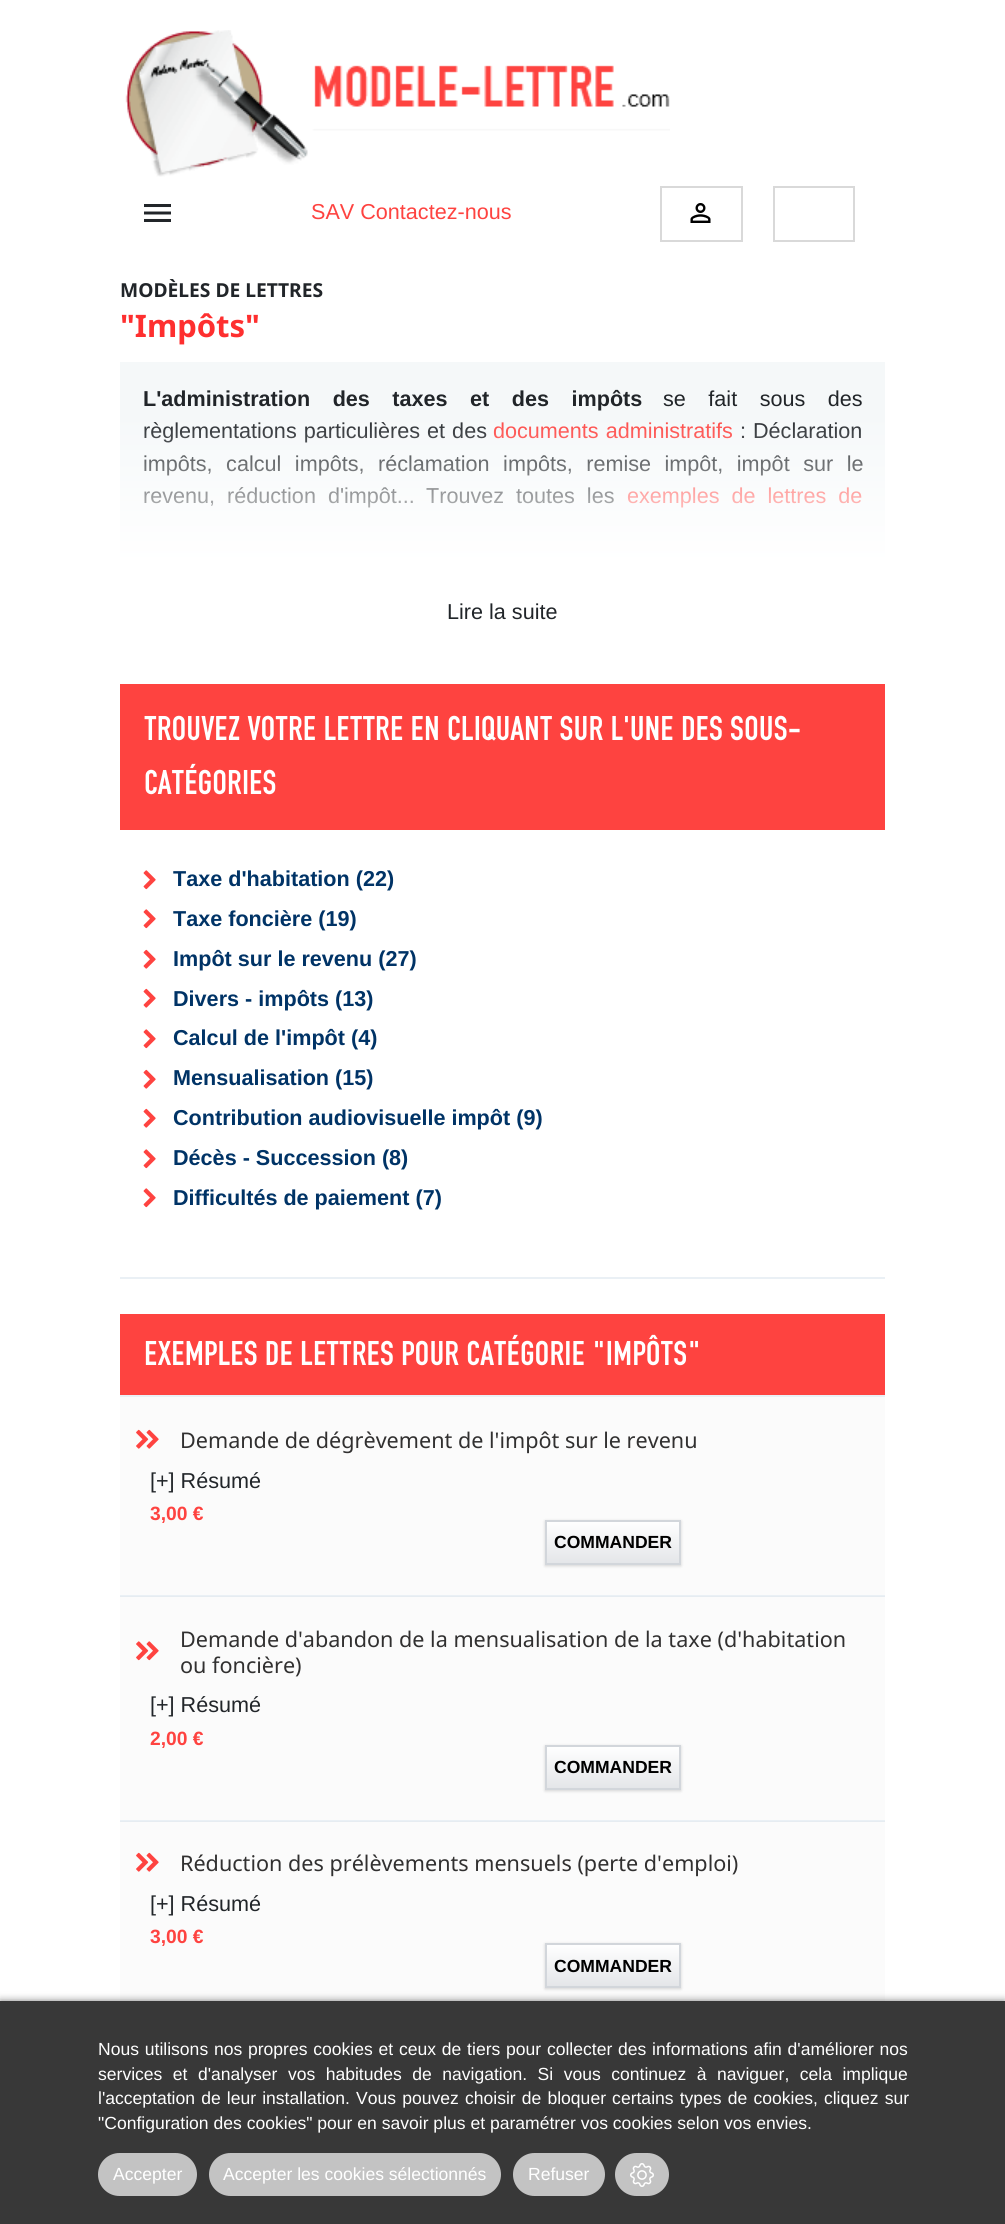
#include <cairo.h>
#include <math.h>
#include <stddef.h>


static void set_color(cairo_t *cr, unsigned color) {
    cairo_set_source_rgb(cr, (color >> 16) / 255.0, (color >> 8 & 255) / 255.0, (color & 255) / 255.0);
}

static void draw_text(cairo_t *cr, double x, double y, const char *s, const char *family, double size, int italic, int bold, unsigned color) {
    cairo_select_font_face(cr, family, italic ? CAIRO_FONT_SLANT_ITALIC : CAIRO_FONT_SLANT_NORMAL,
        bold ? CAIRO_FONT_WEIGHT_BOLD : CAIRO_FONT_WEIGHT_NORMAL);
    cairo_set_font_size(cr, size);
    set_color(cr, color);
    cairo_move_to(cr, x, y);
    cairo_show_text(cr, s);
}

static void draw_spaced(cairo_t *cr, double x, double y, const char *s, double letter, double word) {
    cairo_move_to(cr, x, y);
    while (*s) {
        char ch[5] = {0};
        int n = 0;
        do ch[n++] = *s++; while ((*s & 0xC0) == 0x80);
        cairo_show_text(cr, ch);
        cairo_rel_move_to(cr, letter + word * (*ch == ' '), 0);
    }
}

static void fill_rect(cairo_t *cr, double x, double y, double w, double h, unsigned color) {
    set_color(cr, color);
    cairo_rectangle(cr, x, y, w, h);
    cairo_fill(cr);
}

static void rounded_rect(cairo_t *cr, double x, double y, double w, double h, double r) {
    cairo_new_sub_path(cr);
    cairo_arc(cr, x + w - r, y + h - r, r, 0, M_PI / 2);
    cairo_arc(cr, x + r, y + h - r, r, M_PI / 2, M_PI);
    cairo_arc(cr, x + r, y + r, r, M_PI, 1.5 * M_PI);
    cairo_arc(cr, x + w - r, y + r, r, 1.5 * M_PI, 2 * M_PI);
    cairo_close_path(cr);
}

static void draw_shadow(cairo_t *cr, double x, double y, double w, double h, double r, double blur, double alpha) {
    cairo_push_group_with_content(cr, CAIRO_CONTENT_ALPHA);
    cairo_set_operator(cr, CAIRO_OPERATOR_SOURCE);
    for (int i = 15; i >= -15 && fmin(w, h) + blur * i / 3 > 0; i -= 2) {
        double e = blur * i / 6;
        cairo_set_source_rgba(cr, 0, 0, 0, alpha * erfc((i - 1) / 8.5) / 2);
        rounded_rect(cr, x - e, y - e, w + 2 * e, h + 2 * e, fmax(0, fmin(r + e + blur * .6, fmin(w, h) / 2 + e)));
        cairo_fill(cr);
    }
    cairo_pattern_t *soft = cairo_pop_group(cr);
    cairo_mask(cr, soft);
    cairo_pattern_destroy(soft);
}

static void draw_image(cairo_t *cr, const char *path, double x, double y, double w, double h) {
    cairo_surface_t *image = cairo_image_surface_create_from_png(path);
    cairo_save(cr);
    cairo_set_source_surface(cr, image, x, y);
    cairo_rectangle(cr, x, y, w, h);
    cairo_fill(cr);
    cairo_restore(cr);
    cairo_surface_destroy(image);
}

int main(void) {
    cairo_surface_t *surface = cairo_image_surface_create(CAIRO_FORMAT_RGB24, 1005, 2224);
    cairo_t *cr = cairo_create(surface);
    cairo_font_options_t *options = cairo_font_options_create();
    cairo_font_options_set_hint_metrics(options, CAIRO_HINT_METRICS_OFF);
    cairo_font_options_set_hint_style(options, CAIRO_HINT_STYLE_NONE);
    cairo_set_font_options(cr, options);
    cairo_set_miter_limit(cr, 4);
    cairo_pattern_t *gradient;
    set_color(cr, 0xFFFFFF);
    cairo_paint(cr);
    fill_rect(cr, 120, 1822, 765, 179, 0xFBFBFB);
    fill_rect(cr, 120, 1597, 765, 223, 0xFBFBFB);
    draw_image(cr, "assets/img1.png", 125, 30, 545, 147);
    draw_image(cr, "assets/img2.png", 144, 204, 27, 18);
    draw_text(cr, 311, 219, "SAV Contactez-nous", "Liberation Sans", 21.6, 0, 0, 0xFE4340);
    cairo_rectangle(cr, 661, 187, 81, 54);
    set_color(cr, 0xD9D9D9);
    cairo_stroke(cr);
    draw_image(cr, "assets/img3.png", 690, 203, 21, 20);
    cairo_rectangle(cr, 774, 187, 80, 54);
    cairo_stroke(cr);
    draw_text(cr, 120, 297, "MODÈLES DE LETTRES", "Noto Sans", 19.25, 0, 1, 0x212529);
    draw_text(cr, 120, 337, "\"Impôts\"", "Noto Sans", 31, 0, 1, 0xFE2F2F);
    fill_rect(cr, 120, 362, 765, 201, 0xF5F8F9);
    cairo_select_font_face(cr, "Liberation Sans", CAIRO_FONT_SLANT_NORMAL, CAIRO_FONT_WEIGHT_BOLD);
    cairo_set_font_size(cr, 21.6);
    set_color(cr, 0x212529);
    draw_spaced(cr, 143, 406, "L'administration des taxes et des impôts", 0, 16.5);
    cairo_select_font_face(cr, "Liberation Sans", CAIRO_FONT_SLANT_NORMAL, CAIRO_FONT_WEIGHT_NORMAL);
    draw_spaced(cr, 663, 406, "se fait sous des", 0, 16.5);
    draw_spaced(cr, 143, 438, "règlementations particulières et des", 0, 1);
    set_color(cr, 0xFE4340);
    draw_spaced(cr, 493, 438, "documents administratifs", 0, 1);
    set_color(cr, 0x212529);
    draw_spaced(cr, 740, 438, ": Déclaration", 0, 1);
    draw_spaced(cr, 143, 471, "impôts, calcul impôts, réclamation impôts, remise impôt, impôt sur le", 0, 7.5);
    draw_spaced(cr, 143, 503, "revenu, réduction d'impôt...", 0, 6);
    draw_spaced(cr, 426, 503, "Trouvez toutes les", 0, 6);
    set_color(cr, 0xFE4340);
    draw_spaced(cr, 627, 503, "exemples de lettres de", 0, 6);
    gradient = cairo_pattern_create_linear(503, 564, 503, 362);
    cairo_pattern_add_color_stop_rgba(gradient, 0, 1, 1, 1, 1);
    cairo_pattern_add_color_stop_rgba(gradient, 0.75, 1, 1, 1, 0);
    cairo_set_source(cr, gradient);
    cairo_pattern_destroy(gradient);
    cairo_rectangle(cr, 120, 422, 765, 141);
    cairo_fill(cr);
    draw_text(cr, 447, 619, "Lire la suite", "Liberation Sans", 21.6, 0, 0, 0x212529);
    fill_rect(cr, 120, 1277, 765, 2, 0xEAF0F5);
    fill_rect(cr, 120, 684, 765, 146, 0xFE4340);
    draw_text(cr, 144, 740, "TROUVEZ VOTRE LETTRE EN CLIQUANT SUR L'UNE DES SOUS-", "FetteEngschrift", 36, 0, 0, 0xFFFFFF);
    draw_text(cr, 144, 794, "CATÉGORIES", "FetteEngschrift", 36, 0, 0, 0xFFFFFF);
    draw_image(cr, "assets/img4.png", 143, 870, 13, 20);
    draw_text(cr, 173, 886, "Taxe d'habitation (22)", "Liberation Sans", 21.6, 0, 1, 0x003366);
    draw_image(cr, "assets/img4.png", 143, 909, 13, 20);
    draw_text(cr, 173, 926, "Taxe foncière (19)", "Liberation Sans", 21.6, 0, 1, 0x003366);
    draw_image(cr, "assets/img5.png", 143, 949, 13, 20);
    draw_text(cr, 173, 966, "Impôt sur le revenu (27)", "Liberation Sans", 21.6, 0, 1, 0x003366);
    draw_image(cr, "assets/img5.png", 143, 988, 13, 20);
    draw_text(cr, 173, 1006, "Divers - impôts (13)", "Liberation Sans", 21.6, 0, 1, 0x003366);
    draw_image(cr, "assets/img4.png", 143, 1029, 13, 20);
    draw_text(cr, 173, 1045, "Calcul de l'impôt (4)", "Liberation Sans", 21.6, 0, 1, 0x003366);
    draw_image(cr, "assets/img5.png", 143, 1069, 13, 20);
    draw_text(cr, 173, 1085, "Mensualisation (15)", "Liberation Sans", 21.6, 0, 1, 0x003366);
    draw_image(cr, "assets/img5.png", 143, 1108, 13, 20);
    draw_text(cr, 173, 1125, "Contribution audiovisuelle impôt (9)", "Liberation Sans", 21.6, 0, 1, 0x003366);
    draw_image(cr, "assets/img4.png", 143, 1149, 13, 20);
    draw_text(cr, 173, 1165, "Décès - Succession (8)", "Liberation Sans", 21.6, 0, 1, 0x003366);
    draw_image(cr, "assets/img4.png", 143, 1188, 13, 20);
    draw_text(cr, 173, 1205, "Difficultés de paiement (7)", "Liberation Sans", 21.6, 0, 1, 0x003366);
    fill_rect(cr, 120, 1314, 765, 81, 0xFE4340);
    fill_rect(cr, 120, 1395, 765, 2, 0xEAF0F5);
    draw_text(cr, 144, 1365, "EXEMPLES DE LETTRES POUR CATÉGORIE \"IMPÔTS\"", "FetteEngschrift", 36, 0, 0, 0xFFFFFF);
    fill_rect(cr, 120, 1595, 765, 1, 0xEAF0F5);
    fill_rect(cr, 120, 1596, 765, 1, 0xE6ECF1);
    fill_rect(cr, 120, 1397, 765, 198, 0xFBFBFB);
    draw_image(cr, "assets/img6.png", 136, 1429, 13, 20);
    draw_image(cr, "assets/img7.png", 146, 1429, 13, 20);
    draw_text(cr, 180, 1448, "Demande de dégrèvement de l'impôt sur le revenu", "Noto Sans", 21.6, 0, 0, 0x313030);
    draw_text(cr, 150, 1488, "[+] Résumé", "Liberation Sans", 21.6, 0, 0, 0x212529);
    draw_text(cr, 150, 1520, "3,00 €", "Liberation Sans", 19.25, 0, 1, 0xFE4340);
    set_color(cr, 0x000000);
    draw_shadow(cr, 545, 1521, 136, 45, 0, 1.5, 0.16);
    gradient = cairo_pattern_create_linear(613, 1521, 613, 1563);
    cairo_pattern_add_color_stop_rgba(gradient, 0, 1, 1, 1, 1);
    cairo_pattern_add_color_stop_rgba(gradient, 1, 0.894, 0.902, 0.914, 1);
    cairo_set_source(cr, gradient);
    cairo_pattern_destroy(gradient);
    cairo_rectangle(cr, 547, 1522, 132, 41);
    cairo_fill(cr);
    cairo_rectangle(cr, 546, 1521, 134, 43);
    set_color(cr, 0xD2D6DB);
    cairo_stroke(cr);
    draw_text(cr, 554, 1548, "COMMANDER", "Liberation Sans", 17.55, 0, 1, 0x000000);
    fill_rect(cr, 120, 1820, 765, 1, 0xEAF0F5);
    fill_rect(cr, 120, 1821, 765, 1, 0xE6ECF1);
    draw_image(cr, "assets/img8.png", 136, 1641, 13, 20);
    draw_image(cr, "assets/img9.png", 146, 1641, 13, 20);
    draw_text(cr, 180, 1647, "Demande d'abandon de la mensualisation de la taxe (d'habitation", "Noto Sans", 21.6, 0, 0, 0x313030);
    draw_text(cr, 180, 1673, "ou foncière)", "Noto Sans", 21.6, 0, 0, 0x313030);
    draw_text(cr, 150, 1712, "[+] Résumé", "Liberation Sans", 21.6, 0, 0, 0x212529);
    draw_text(cr, 150, 1745, "2,00 €", "Liberation Sans", 19.25, 0, 1, 0xFE4340);
    set_color(cr, 0x000000);
    draw_shadow(cr, 545, 1746, 136, 45, 0, 1.5, 0.16);
    gradient = cairo_pattern_create_linear(613, 1746, 613, 1788);
    cairo_pattern_add_color_stop_rgba(gradient, 0, 1, 1, 1, 1);
    cairo_pattern_add_color_stop_rgba(gradient, 1, 0.894, 0.902, 0.914, 1);
    cairo_set_source(cr, gradient);
    cairo_pattern_destroy(gradient);
    cairo_rectangle(cr, 547, 1747, 132, 41);
    cairo_fill(cr);
    cairo_rectangle(cr, 546, 1746, 134, 43);
    set_color(cr, 0xD2D6DB);
    cairo_stroke(cr);
    draw_text(cr, 554, 1773, "COMMANDER", "Liberation Sans", 17.55, 0, 1, 0x000000);
    draw_image(cr, "assets/img10.png", 136, 1852, 13, 20);
    draw_image(cr, "assets/img11.png", 146, 1852, 13, 20);
    draw_text(cr, 180, 1871, "Réduction des prélèvements mensuels (perte d'emploi)", "Noto Sans", 21.6, 0, 0, 0x313030);
    draw_text(cr, 150, 1911, "[+] Résumé", "Liberation Sans", 21.6, 0, 0, 0x212529);
    draw_text(cr, 150, 1943, "3,00 €", "Liberation Sans", 19.25, 0, 1, 0xFE4340);
    set_color(cr, 0x000000);
    draw_shadow(cr, 545, 1944, 136, 45, 0, 1.5, 0.16);
    gradient = cairo_pattern_create_linear(613, 1944, 613, 1986);
    cairo_pattern_add_color_stop_rgba(gradient, 0, 1, 1, 1, 1);
    cairo_pattern_add_color_stop_rgba(gradient, 1, 0.894, 0.902, 0.914, 1);
    cairo_set_source(cr, gradient);
    cairo_pattern_destroy(gradient);
    cairo_rectangle(cr, 547, 1945, 132, 41);
    cairo_fill(cr);
    cairo_rectangle(cr, 546, 1944, 134, 43);
    set_color(cr, 0xD2D6DB);
    cairo_stroke(cr);
    draw_text(cr, 554, 1972, "COMMANDER", "Liberation Sans", 17.55, 0, 1, 0x000000);
    set_color(cr, 0x000000);
    draw_shadow(cr, 0, 2001, 1005, 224, 0, 4, 0.5);
    fill_rect(cr, 0, 2001, 1005, 223, 0x383838);
    cairo_select_font_face(cr, "Liberation Sans", CAIRO_FONT_SLANT_NORMAL, CAIRO_FONT_WEIGHT_NORMAL);
    set_color(cr, 0xFFFFFF);
    draw_spaced(cr, 98, 2055, "Nous utilisons nos propres cookies et ceux de tiers pour collecter des informations afin d'améliorer nos", 0, 0.9);
    draw_spaced(cr, 98, 2080, "services et d'analyser vos habitudes de navigation. Si vous continuez à naviguer, cela implique", 0, 5.6);
    draw_spaced(cr, 98, 2104, "l'acceptation de leur installation. Vous pouvez choisir de bloquer certains types de cookies, cliquez sur", 0, 1.25);
    draw_text(cr, 98, 2129, "\"Configuration des cookies\" pour en savoir plus et paramétrer vos cookies selon vos envies.", "Liberation Sans", 17.55, 0, 0, 0xFFFFFF);
    set_color(cr, 0xC3C3C3);
    rounded_rect(cr, 615, 2153, 54, 43, 21.5);
    cairo_fill(cr);
    rounded_rect(cr, 98, 2153, 99, 43, 21.5);
    cairo_fill(cr);
    draw_text(cr, 113, 2180, "Accepter", "Liberation Sans", 17.55, 0, 0, 0xFFFFFF);
    set_color(cr, 0xC3C3C3);
    rounded_rect(cr, 209, 2153, 292, 43, 21.5);
    cairo_fill(cr);
    draw_text(cr, 223, 2180, "Accepter les cookies sélectionnés", "Liberation Sans", 17.55, 0, 0, 0xFFFFFF);
    set_color(cr, 0xC3C3C3);
    rounded_rect(cr, 513, 2153, 92, 43, 21.5);
    cairo_fill(cr);
    draw_text(cr, 528, 2180, "Refuser", "Liberation Sans", 17.55, 0, 0, 0xFFFFFF);
    draw_image(cr, "assets/img12.png", 630, 2163, 24, 24);
    cairo_surface_write_to_png(surface, "output.png");
    cairo_font_options_destroy(options);
    cairo_destroy(cr);
    cairo_surface_destroy(surface);
    return 0;
}
